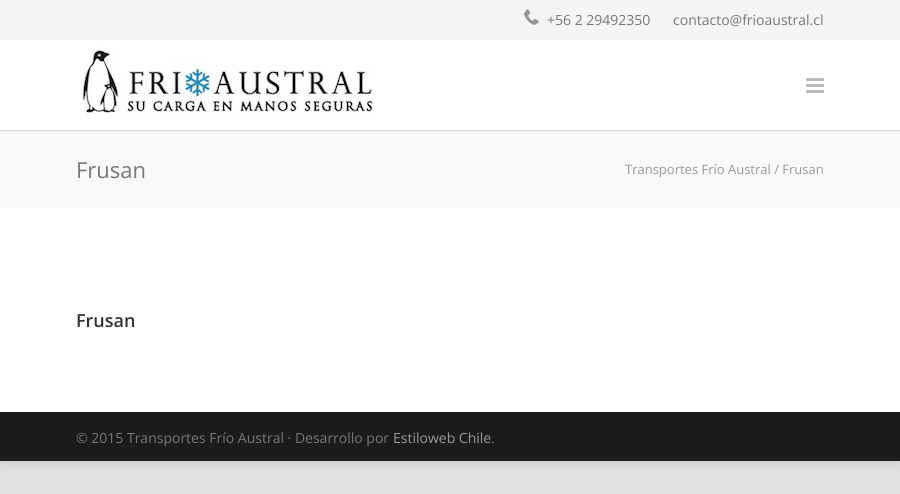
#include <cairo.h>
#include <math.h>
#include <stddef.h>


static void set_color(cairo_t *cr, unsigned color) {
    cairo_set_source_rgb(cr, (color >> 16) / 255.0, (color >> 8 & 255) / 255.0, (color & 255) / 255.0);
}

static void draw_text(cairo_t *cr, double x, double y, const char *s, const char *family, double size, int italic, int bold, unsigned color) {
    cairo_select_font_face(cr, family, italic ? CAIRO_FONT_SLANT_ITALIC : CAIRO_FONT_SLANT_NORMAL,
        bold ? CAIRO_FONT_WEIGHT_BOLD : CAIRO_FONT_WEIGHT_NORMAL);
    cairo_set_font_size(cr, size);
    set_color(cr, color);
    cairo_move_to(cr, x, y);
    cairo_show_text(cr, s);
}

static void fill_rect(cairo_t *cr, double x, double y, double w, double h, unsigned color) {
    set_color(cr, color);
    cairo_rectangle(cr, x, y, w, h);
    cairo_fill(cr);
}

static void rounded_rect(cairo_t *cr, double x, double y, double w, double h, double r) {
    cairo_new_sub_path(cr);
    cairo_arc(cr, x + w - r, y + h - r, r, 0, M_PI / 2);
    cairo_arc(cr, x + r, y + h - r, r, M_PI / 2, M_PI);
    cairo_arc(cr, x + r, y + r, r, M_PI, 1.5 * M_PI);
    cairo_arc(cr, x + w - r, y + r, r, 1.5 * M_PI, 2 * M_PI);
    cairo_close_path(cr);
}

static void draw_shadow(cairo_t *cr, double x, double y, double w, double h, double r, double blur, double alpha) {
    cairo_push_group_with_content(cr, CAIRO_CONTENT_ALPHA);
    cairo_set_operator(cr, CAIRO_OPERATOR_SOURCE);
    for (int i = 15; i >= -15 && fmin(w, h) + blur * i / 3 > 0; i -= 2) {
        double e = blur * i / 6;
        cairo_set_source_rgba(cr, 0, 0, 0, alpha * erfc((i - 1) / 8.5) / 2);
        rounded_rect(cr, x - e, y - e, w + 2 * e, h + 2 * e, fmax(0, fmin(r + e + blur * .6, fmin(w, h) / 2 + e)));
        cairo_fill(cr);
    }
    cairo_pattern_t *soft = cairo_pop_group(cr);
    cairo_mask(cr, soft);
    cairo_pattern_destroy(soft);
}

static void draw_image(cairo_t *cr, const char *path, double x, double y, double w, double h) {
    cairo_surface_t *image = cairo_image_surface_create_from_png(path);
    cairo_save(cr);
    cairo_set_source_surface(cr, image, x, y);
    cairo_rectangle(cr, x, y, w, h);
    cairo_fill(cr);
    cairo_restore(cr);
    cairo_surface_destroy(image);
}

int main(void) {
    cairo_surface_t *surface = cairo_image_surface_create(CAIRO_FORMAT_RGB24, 900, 494);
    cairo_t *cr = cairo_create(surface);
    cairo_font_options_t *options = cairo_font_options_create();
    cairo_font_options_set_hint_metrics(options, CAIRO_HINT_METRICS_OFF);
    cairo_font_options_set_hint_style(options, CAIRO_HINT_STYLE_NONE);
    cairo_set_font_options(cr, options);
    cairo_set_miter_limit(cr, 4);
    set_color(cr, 0xE0E0E0);
    cairo_paint(cr);
    set_color(cr, 0x000000);
    draw_shadow(cr, 0, 0, 900, 461, 0, 5, 0.15);
    fill_rect(cr, 0, 40, 900, 372, 0xFFFFFF);
    fill_rect(cr, 0, 130, 900, 78, 0xF9F9F9);
    cairo_save(cr);
    cairo_rectangle(cr, 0, 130, 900, 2);
    cairo_clip(cr);
    set_color(cr, 0x000000);
    draw_shadow(cr, -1, 39, 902, 92, 0, 1, 0.16);
    cairo_restore(cr);
    fill_rect(cr, 0, 0, 900, 40, 0xF5F5F5);
    draw_image(cr, "assets/img1.png", 524, 9, 15, 16);
    draw_text(cr, 547, 25, "+56 2 29492350", "Open Sans", 14, 0, 0, 0x777777);
    draw_text(cr, 673, 25, "contacto@frioaustral.cl", "Open Sans", 14, 0, 0, 0x777777);
    draw_image(cr, "assets/img2.png", 82, 46, 291, 71);
    draw_image(cr, "assets/img3.png", 806, 78, 18, 15);
    draw_text(cr, 76, 178, "Frusan", "Open Sans", 22, 0, 0, 0x777777);
    draw_text(cr, 625, 174, "Transportes Frío Austral / Frusan", "Open Sans", 13, 0, 0, 0x999999);
    draw_text(cr, 76, 327, "Frusan", "Open Sans SemiBold", 18, 0, 0, 0x333333);
    fill_rect(cr, 0, 412, 900, 49, 0x1B1B1B);
    draw_text(cr, 76, 443, "© 2015 Transportes Frío Austral · Desarrollo por", "Open Sans", 14, 0, 0, 0x777777);
    draw_text(cr, 393, 443, "Estiloweb Chile", "Open Sans", 14, 0, 0, 0x999999);
    draw_text(cr, 491, 443, ".", "Open Sans", 14, 0, 0, 0x777777);
    cairo_surface_write_to_png(surface, "output.png");
    cairo_font_options_destroy(options);
    cairo_destroy(cr);
    cairo_surface_destroy(surface);
    return 0;
}
